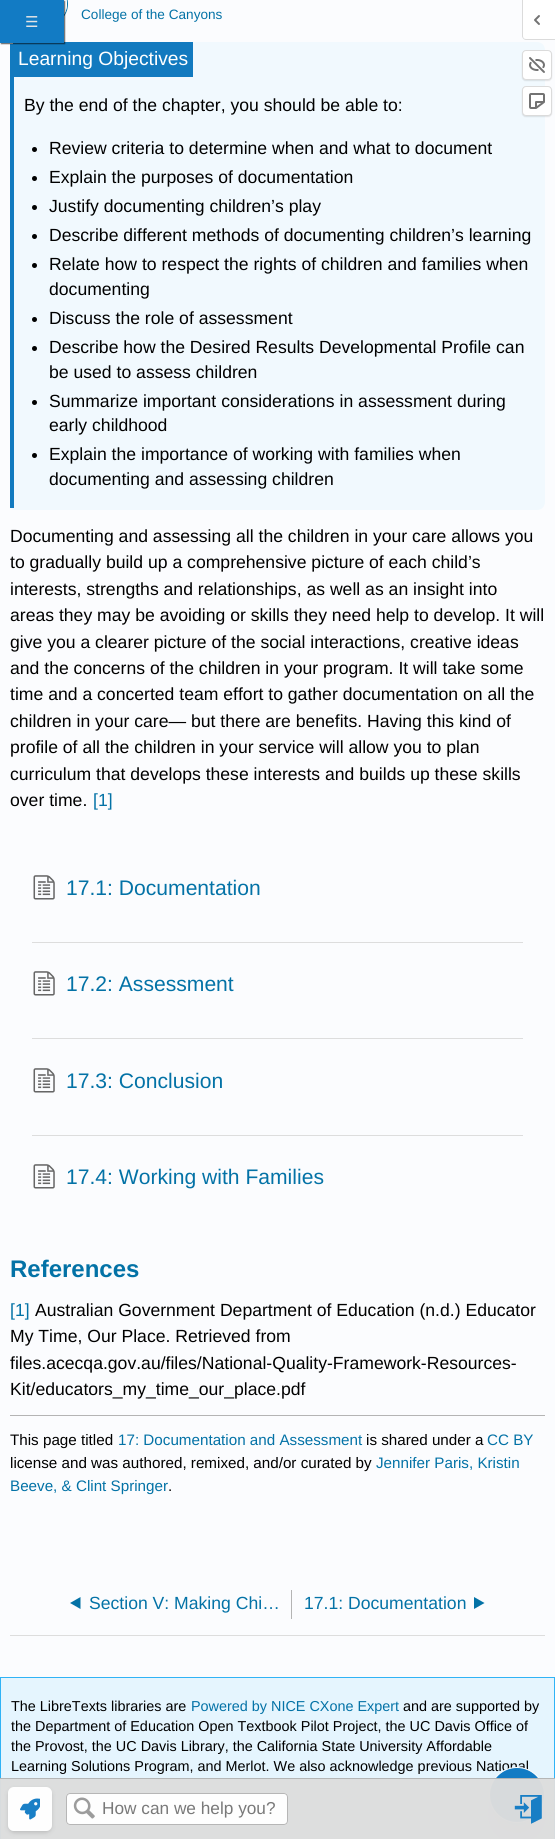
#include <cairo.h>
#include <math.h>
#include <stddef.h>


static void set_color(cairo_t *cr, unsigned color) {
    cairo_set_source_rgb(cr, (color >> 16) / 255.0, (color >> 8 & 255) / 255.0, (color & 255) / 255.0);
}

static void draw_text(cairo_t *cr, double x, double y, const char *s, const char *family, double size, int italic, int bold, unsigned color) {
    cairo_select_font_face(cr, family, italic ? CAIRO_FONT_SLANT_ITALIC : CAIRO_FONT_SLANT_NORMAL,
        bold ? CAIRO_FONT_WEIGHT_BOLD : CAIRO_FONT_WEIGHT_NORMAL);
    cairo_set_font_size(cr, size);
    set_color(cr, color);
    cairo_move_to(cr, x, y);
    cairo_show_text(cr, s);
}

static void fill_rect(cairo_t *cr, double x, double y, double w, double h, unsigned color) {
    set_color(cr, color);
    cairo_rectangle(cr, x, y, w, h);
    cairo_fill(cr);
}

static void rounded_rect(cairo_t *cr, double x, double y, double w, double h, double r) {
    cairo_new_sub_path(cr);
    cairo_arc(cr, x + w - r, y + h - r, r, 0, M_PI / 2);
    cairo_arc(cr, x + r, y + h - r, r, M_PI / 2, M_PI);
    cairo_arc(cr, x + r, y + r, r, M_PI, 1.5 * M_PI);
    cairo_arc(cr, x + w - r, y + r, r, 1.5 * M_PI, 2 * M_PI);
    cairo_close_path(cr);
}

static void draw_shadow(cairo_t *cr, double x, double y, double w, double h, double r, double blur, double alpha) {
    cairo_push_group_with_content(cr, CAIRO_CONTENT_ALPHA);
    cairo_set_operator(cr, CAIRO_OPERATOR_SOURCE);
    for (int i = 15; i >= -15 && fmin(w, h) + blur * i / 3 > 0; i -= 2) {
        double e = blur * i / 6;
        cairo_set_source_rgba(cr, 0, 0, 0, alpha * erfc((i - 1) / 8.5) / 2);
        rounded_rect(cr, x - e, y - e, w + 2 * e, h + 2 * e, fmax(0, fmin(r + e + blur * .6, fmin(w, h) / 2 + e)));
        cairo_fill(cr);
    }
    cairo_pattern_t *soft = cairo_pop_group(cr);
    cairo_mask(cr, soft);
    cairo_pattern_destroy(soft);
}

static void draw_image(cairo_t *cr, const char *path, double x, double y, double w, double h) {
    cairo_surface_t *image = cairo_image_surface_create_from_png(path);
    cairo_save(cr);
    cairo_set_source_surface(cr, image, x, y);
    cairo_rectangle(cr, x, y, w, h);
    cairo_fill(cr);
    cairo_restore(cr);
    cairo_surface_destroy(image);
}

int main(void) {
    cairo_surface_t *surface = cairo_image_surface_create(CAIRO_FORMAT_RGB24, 555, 1839);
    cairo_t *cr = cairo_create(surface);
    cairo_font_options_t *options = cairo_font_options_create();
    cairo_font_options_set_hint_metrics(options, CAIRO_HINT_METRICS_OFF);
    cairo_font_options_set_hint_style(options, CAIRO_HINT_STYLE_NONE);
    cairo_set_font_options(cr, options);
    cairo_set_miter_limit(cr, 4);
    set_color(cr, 0xFBFCFE);
    cairo_paint(cr);
    set_color(cr, 0xFFFFFF);
    cairo_new_path(cr);
    cairo_move_to(cr, 523, 0);
    cairo_line_to(cr, 555, 0);
    cairo_line_to(cr, 555, 39);
    cairo_line_to(cr, 526, 39);
    cairo_curve_to(cr, 524.5, 39, 523, 37.5, 523, 36);
    cairo_close_path(cr);
    cairo_fill(cr);
    set_color(cr, 0xDBDBDB);
    cairo_set_fill_rule(cr, CAIRO_FILL_RULE_EVEN_ODD);
    cairo_new_path(cr);
    cairo_move_to(cr, 522, 0);
    cairo_line_to(cr, 555, 0);
    cairo_line_to(cr, 555, 40);
    cairo_line_to(cr, 526, 40);
    cairo_curve_to(cr, 524, 40, 522, 38, 522, 36);
    cairo_close_path(cr);
    cairo_move_to(cr, 523, 0);
    cairo_line_to(cr, 555, 0);
    cairo_line_to(cr, 555, 39);
    cairo_line_to(cr, 526, 39);
    cairo_curve_to(cr, 524, 39, 523, 38, 523, 36);
    cairo_close_path(cr);
    cairo_fill(cr);
    draw_image(cr, "assets/img1.png", 534, 15, 6, 10);
    set_color(cr, 0xF1F9FE);
    cairo_new_path(cr);
    cairo_move_to(cr, 14, 42);
    cairo_line_to(cr, 537, 42);
    cairo_curve_to(cr, 541.5, 42, 545, 45.5, 545, 50);
    cairo_line_to(cr, 545, 502);
    cairo_curve_to(cr, 545, 506.5, 541.5, 510, 537, 510);
    cairo_line_to(cr, 14, 510);
    cairo_curve_to(cr, 12, 510, 10, 508, 10, 506);
    cairo_line_to(cr, 10, 46);
    cairo_curve_to(cr, 10, 44, 12, 42, 14, 42);
    cairo_close_path(cr);
    cairo_fill(cr);
    set_color(cr, 0x000000);
    draw_shadow(cr, 522, 51, 30, 30, 4, 0.5, 0.1);
    set_color(cr, 0xFFFFFF);
    rounded_rect(cr, 522.5, 50.5, 29, 29, 3.5);
    cairo_fill_preserve(cr);
    set_color(cr, 0xDBDBDB);
    cairo_set_line_width(cr, 1);
    cairo_stroke(cr);
    draw_image(cr, "assets/img2.png", 529, 57, 16, 16);
    set_color(cr, 0x000000);
    draw_shadow(cr, 522, 87, 30, 30, 4, 0.5, 0.1);
    set_color(cr, 0xFFFFFF);
    rounded_rect(cr, 522.5, 86.5, 29, 29, 3.5);
    cairo_fill_preserve(cr);
    set_color(cr, 0xDBDBDB);
    cairo_stroke(cr);
    draw_image(cr, "assets/img3.png", 529, 93, 16, 16);
    rounded_rect(cr, 25.5, -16.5, 42, 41, 20.5);
    set_color(cr, 0x0372A6);
    cairo_stroke(cr);
    draw_image(cr, "assets/img4.png", 64, 0, 3, 15);
    draw_text(cr, 81, 19, "College of the Canyons", "Liberation Sans", 13.6, 0, 0, 0x0372A6);
    fill_rect(cr, 10, 44, 4, 464, 0x127ABF);
    fill_rect(cr, 13, 42, 180, 35, 0x127ABF);
    draw_text(cr, 18, 65, "Learning Objectives", "Liberation Sans", 19.25, 0, 0, 0xFFFFFF);
    draw_text(cr, 24, 111, "By the end of the chapter, you should be able to:", "Liberation Sans", 17.6, 0, 0, 0x000000);
    cairo_new_path(cr);
    cairo_arc(cr, 34.5, 149.5, 2.5, 0, 2 * M_PI);
    cairo_fill(cr);
    draw_text(cr, 49, 154, "Review criteria to determine when and what to document", "Liberation Sans", 17.6, 0, 0, 0x000000);
    cairo_new_path(cr);
    cairo_arc(cr, 34.5, 178.5, 2.5, 0, 2 * M_PI);
    cairo_fill(cr);
    draw_text(cr, 49, 183, "Explain the purposes of documentation", "Liberation Sans", 17.6, 0, 0, 0x000000);
    cairo_new_path(cr);
    cairo_arc(cr, 34.5, 207.5, 2.5, 0, 2 * M_PI);
    cairo_fill(cr);
    draw_text(cr, 49, 212, "Justify documenting children’s play", "Liberation Sans", 17.6, 0, 0, 0x000000);
    cairo_new_path(cr);
    cairo_arc(cr, 34.5, 236.5, 2.5, 0, 2 * M_PI);
    cairo_fill(cr);
    draw_text(cr, 49, 241, "Describe different methods of documenting children’s learning", "Liberation Sans", 17.6, 0, 0, 0x000000);
    cairo_new_path(cr);
    cairo_arc(cr, 34.5, 265.5, 2.5, 0, 2 * M_PI);
    cairo_fill(cr);
    draw_text(cr, 49, 270, "Relate how to respect the rights of children and families when", "Liberation Sans", 17.6, 0, 0, 0x000000);
    draw_text(cr, 49, 295, "documenting", "Liberation Sans", 17.6, 0, 0, 0x000000);
    cairo_new_path(cr);
    cairo_arc(cr, 34.5, 319.5, 2.5, 0, 2 * M_PI);
    cairo_fill(cr);
    draw_text(cr, 49, 324, "Discuss the role of assessment", "Liberation Sans", 17.6, 0, 0, 0x000000);
    cairo_new_path(cr);
    cairo_arc(cr, 34.5, 348.5, 2.5, 0, 2 * M_PI);
    cairo_fill(cr);
    draw_text(cr, 49, 353, "Describe how the Desired Results Developmental Profile can", "Liberation Sans", 17.6, 0, 0, 0x000000);
    draw_text(cr, 49, 378, "be used to assess children", "Liberation Sans", 17.6, 0, 0, 0x000000);
    cairo_new_path(cr);
    cairo_arc(cr, 34.5, 402.5, 2.5, 0, 2 * M_PI);
    cairo_fill(cr);
    draw_text(cr, 49, 407, "Summarize important considerations in assessment during", "Liberation Sans", 17.6, 0, 0, 0x000000);
    draw_text(cr, 49, 431, "early childhood", "Liberation Sans", 17.6, 0, 0, 0x000000);
    cairo_new_path(cr);
    cairo_arc(cr, 34.5, 455.5, 2.5, 0, 2 * M_PI);
    cairo_fill(cr);
    draw_text(cr, 49, 460, "Explain the importance of working with families when", "Liberation Sans", 17.6, 0, 0, 0x000000);
    draw_text(cr, 49, 485, "documenting and assessing children", "Liberation Sans", 17.6, 0, 0, 0x000000);
    draw_text(cr, 10, 542, "Documenting and assessing all the children in your care allows you", "Liberation Sans", 17.6, 0, 0, 0x000000);
    draw_text(cr, 10, 568, "to gradually build up a comprehensive picture of each child’s", "Liberation Sans", 17.6, 0, 0, 0x000000);
    draw_text(cr, 10, 595, "interests, strengths and relationships, as well as an insight into", "Liberation Sans", 17.6, 0, 0, 0x000000);
    draw_text(cr, 10, 621, "areas they may be avoiding or skills they need help to develop. It will", "Liberation Sans", 17.6, 0, 0, 0x000000);
    draw_text(cr, 10, 648, "give you a clearer picture of the social interactions, creative ideas", "Liberation Sans", 17.6, 0, 0, 0x000000);
    draw_text(cr, 10, 674, "and the concerns of the children in your program. It will take some", "Liberation Sans", 17.6, 0, 0, 0x000000);
    draw_text(cr, 10, 700, "time and a concerted team effort to gather documentation on all the", "Liberation Sans", 17.6, 0, 0, 0x000000);
    draw_text(cr, 10, 727, "children in your care— but there are benefits. Having this kind of", "Liberation Sans", 17.6, 0, 0, 0x000000);
    draw_text(cr, 10, 753, "profile of all the children in your service will allow you to plan", "Liberation Sans", 17.6, 0, 0, 0x000000);
    draw_text(cr, 10, 780, "curriculum that develops these interests and builds up these skills", "Liberation Sans", 17.6, 0, 0, 0x000000);
    draw_text(cr, 10, 806, "over time.", "Liberation Sans", 17.6, 0, 0, 0x000000);
    draw_text(cr, 93, 806, "[1]", "Liberation Sans", 17.6, 0, 0, 0x0372A6);
    fill_rect(cr, 32, 942, 491, 1, 0xDDDDDD);
    draw_image(cr, "assets/img5.png", 33, 875, 22, 25);
    draw_text(cr, 66, 895, "17.1: Documentation", "Liberation Sans", 21.1, 0, 0, 0x0372A6);
    fill_rect(cr, 32, 1038, 491, 1, 0xDDDDDD);
    draw_image(cr, "assets/img5.png", 33, 971, 22, 25);
    draw_text(cr, 66, 991, "17.2: Assessment", "Liberation Sans", 21.1, 0, 0, 0x0372A6);
    fill_rect(cr, 32, 1135, 491, 1, 0xDDDDDD);
    draw_image(cr, "assets/img5.png", 33, 1068, 22, 25);
    draw_text(cr, 66, 1088, "17.3: Conclusion", "Liberation Sans", 21.1, 0, 0, 0x0372A6);
    draw_image(cr, "assets/img5.png", 33, 1164, 22, 25);
    draw_text(cr, 66, 1184, "17.4: Working with Families", "Liberation Sans", 21.1, 0, 0, 0x0372A6);
    draw_text(cr, 10, 1277, "References", "Liberation Sans", 24, 0, 1, 0x0372A6);
    draw_text(cr, 10, 1316, "[1]", "Liberation Sans", 17.6, 0, 0, 0x0372A6);
    draw_text(cr, 35, 1316, "Australian Government Department of Education (n.d.) Educator", "Liberation Sans", 17.6, 0, 0, 0x000000);
    draw_text(cr, 10, 1342, "My Time, Our Place. Retrieved from", "Liberation Sans", 17.6, 0, 0, 0x000000);
    draw_text(cr, 10, 1369, "files.acecqa.gov.au/files/National-Quality-Framework-Resources-", "Liberation Sans", 17.6, 0, 0, 0x000000);
    draw_text(cr, 10, 1395, "Kit/educators_my_time_our_place.pdf", "Liberation Sans", 17.6, 0, 0, 0x000000);
    fill_rect(cr, 10, 1415, 535, 1, 0xB4B4B4);
    draw_text(cr, 10, 1445, "This page titled", "Liberation Sans", 15.2, 0, 0, 0x000000);
    draw_text(cr, 118, 1445, "17: Documentation and Assessment", "Liberation Sans", 15.2, 0, 0, 0x0372A6);
    draw_text(cr, 366, 1445, "is shared under a", "Liberation Sans", 15.2, 0, 0, 0x000000);
    draw_text(cr, 487, 1445, "CC BY", "Liberation Sans", 15.2, 0, 0, 0x0372A6);
    draw_text(cr, 10, 1468, "license and was authored, remixed, and/or curated by", "Liberation Sans", 15.2, 0, 0, 0x000000);
    draw_text(cr, 376, 1468, "Jennifer Paris, Kristin", "Liberation Sans", 15.2, 0, 0, 0x0372A6);
    draw_text(cr, 10, 1491, "Beeve, & Clint Springer", "Liberation Sans", 15.2, 0, 0, 0x0372A6);
    draw_text(cr, 168, 1491, ".", "Liberation Sans", 15.2, 0, 0, 0x000000);
    fill_rect(cr, 10, 1635, 535, 1, 0xDDDDDD);
    fill_rect(cr, 291, 1590, 1, 29, 0xB4B4B4);
    set_color(cr, 0x0372A6);
    cairo_set_fill_rule(cr, CAIRO_FILL_RULE_WINDING);
    cairo_new_path(cr);
    cairo_move_to(cr, 80.5, 1597);
    cairo_line_to(cr, 80.5, 1609);
    cairo_line_to(cr, 70, 1603);
    cairo_close_path(cr);
    cairo_fill(cr);
    draw_text(cr, 89, 1609, "Section V: Making Chi…", "Liberation Sans", 17.6, 0, 0, 0x0372A6);
    draw_text(cr, 304, 1609, "17.1: Documentation", "Liberation Sans", 17.6, 0, 0, 0x0372A6);
    cairo_new_path(cr);
    cairo_move_to(cr, 474, 1597);
    cairo_line_to(cr, 474, 1609);
    cairo_line_to(cr, 484.5, 1603);
    cairo_close_path(cr);
    cairo_fill(cr);
    set_color(cr, 0xE5F5FE);
    cairo_rectangle(cr, 0.5, 1677.5, 554, 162);
    cairo_fill_preserve(cr);
    set_color(cr, 0x30B3F6);
    cairo_stroke(cr);
    draw_text(cr, 11, 1711, "The LibreTexts libraries are", "Liberation Sans", 14.4, 0, 0, 0x000000);
    draw_text(cr, 191, 1711, "Powered by NICE CXone Expert", "Liberation Sans", 14.4, 0, 0, 0x0372A6);
    draw_text(cr, 403, 1711, "and are supported by", "Liberation Sans", 14.4, 0, 0, 0x000000);
    draw_text(cr, 11, 1731, "the Department of Education Open Textbook Pilot Project, the UC Davis Office of", "Liberation Sans", 14.4, 0, 0, 0x000000);
    draw_text(cr, 11, 1751, "the Provost, the UC Davis Library, the California State University Affordable", "Liberation Sans", 14.4, 0, 0, 0x000000);
    draw_text(cr, 11, 1771, "Learning Solutions Program, and Merlot. We also acknowledge previous National", "Liberation Sans", 14.4, 0, 0, 0x000000);
    set_color(cr, 0x000000);
    draw_shadow(cr, 495, 1781, 44, 44, 22, 5, 0.1);
    draw_shadow(cr, 494, 1792, 46, 46, 23, 12.5, 0.1);
    set_color(cr, 0x127BC4);
    cairo_arc(cr, 517, 1795, 27.5, 0, 2 * M_PI);
    cairo_fill_preserve(cr);
    set_color(cr, 0xFFFFFF);
    cairo_stroke(cr);
    cairo_set_source_rgba(cr, 0.867, 0.867, 0.867, 0.97);
    cairo_rectangle(cr, 0, 1779, 555, 60);
    cairo_fill(cr);
    cairo_set_source_rgba(cr, 0.706, 0.706, 0.706, 0.97);
    cairo_rectangle(cr, 0, 1778, 555, 1);
    cairo_fill(cr);
    cairo_save(cr);
    cairo_set_fill_rule(cr, CAIRO_FILL_RULE_EVEN_ODD);
    cairo_new_path(cr);
    cairo_move_to(cr, 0, 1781);
    cairo_line_to(cr, 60, 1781);
    cairo_line_to(cr, 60, 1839);
    cairo_line_to(cr, 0, 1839);
    cairo_close_path(cr);
    cairo_move_to(cr, 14, 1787);
    cairo_line_to(cr, 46, 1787);
    cairo_curve_to(cr, 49.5, 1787, 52, 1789.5, 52, 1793);
    cairo_line_to(cr, 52, 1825);
    cairo_curve_to(cr, 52, 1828.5, 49.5, 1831, 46, 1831);
    cairo_line_to(cr, 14, 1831);
    cairo_curve_to(cr, 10.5, 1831, 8, 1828.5, 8, 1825);
    cairo_line_to(cr, 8, 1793);
    cairo_curve_to(cr, 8, 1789.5, 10.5, 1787, 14, 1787);
    cairo_close_path(cr);
    cairo_clip(cr);
    set_color(cr, 0x000000);
    draw_shadow(cr, 9, 1790, 42, 42, 5, 2.5, 0.19);
    cairo_restore(cr);
    cairo_set_source_rgba(cr, 1, 1, 1, 0.97);
    rounded_rect(cr, 8, 1787, 44, 44, 6);
    cairo_fill(cr);
    draw_image(cr, "assets/img6.png", 20, 1798, 20, 22);
    rounded_rect(cr, 66, 1793, 222, 32, 4);
    cairo_fill(cr);
    rounded_rect(cr, 66.5, 1793.5, 221, 31, 3.5);
    cairo_set_source_rgba(cr, 0.706, 0.706, 0.706, 0.97);
    cairo_stroke(cr);
    draw_image(cr, "assets/img7.png", 73, 1797, 22, 22);
    draw_text(cr, 102, 1814, "How can we help you?", "Liberation Sans", 17.25, 0, 0, 0x797979);
    draw_image(cr, "assets/img8.png", 514, 1795, 28, 29);
    set_color(cr, 0x000000);
    draw_shadow(cr, 1, 1, 64, 43, 0, 0.5, 0.6);
    fill_rect(cr, 0, 0, 64, 43, 0x127BC4);
    draw_text(cr, 25, 27, "☰", "DejaVu Sans", 15, 0, 0, 0xE5E5E5);
    cairo_surface_write_to_png(surface, "output.png");
    cairo_font_options_destroy(options);
    cairo_destroy(cr);
    cairo_surface_destroy(surface);
    return 0;
}
